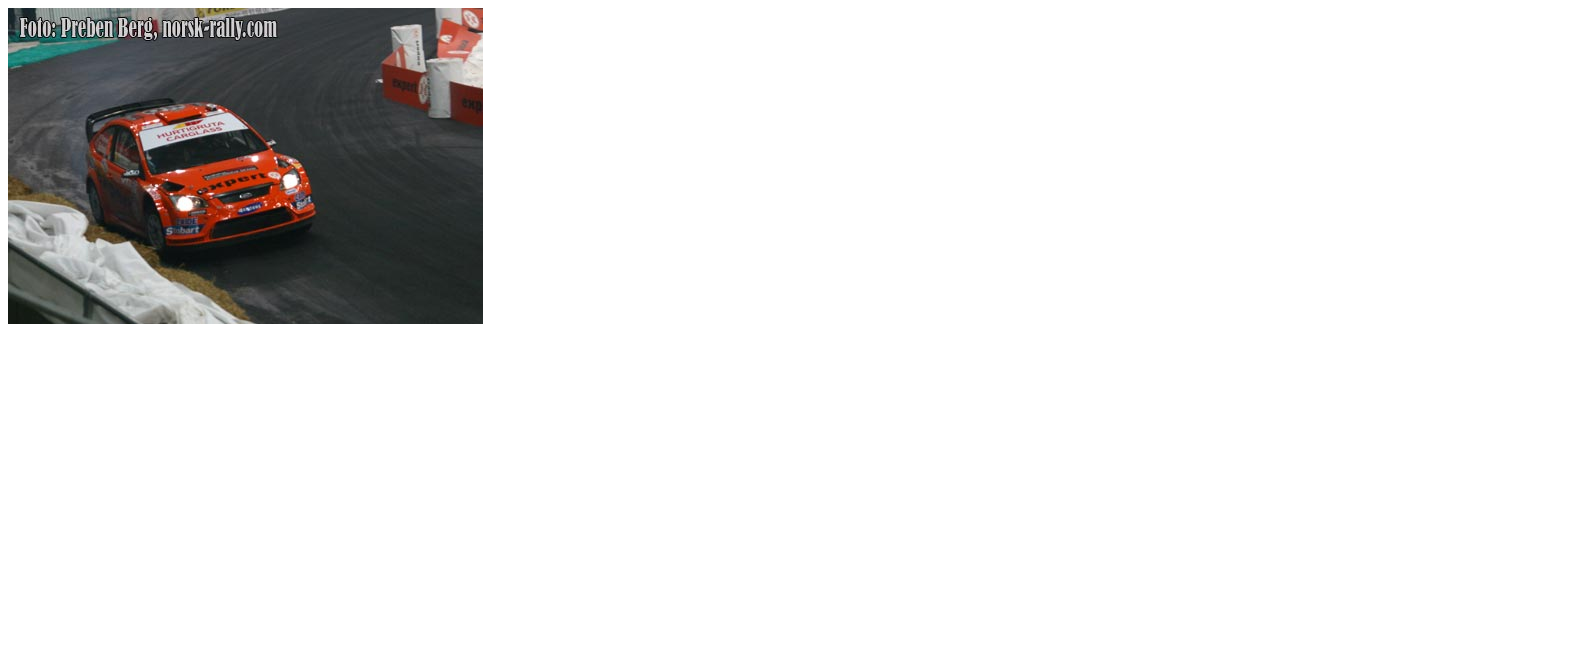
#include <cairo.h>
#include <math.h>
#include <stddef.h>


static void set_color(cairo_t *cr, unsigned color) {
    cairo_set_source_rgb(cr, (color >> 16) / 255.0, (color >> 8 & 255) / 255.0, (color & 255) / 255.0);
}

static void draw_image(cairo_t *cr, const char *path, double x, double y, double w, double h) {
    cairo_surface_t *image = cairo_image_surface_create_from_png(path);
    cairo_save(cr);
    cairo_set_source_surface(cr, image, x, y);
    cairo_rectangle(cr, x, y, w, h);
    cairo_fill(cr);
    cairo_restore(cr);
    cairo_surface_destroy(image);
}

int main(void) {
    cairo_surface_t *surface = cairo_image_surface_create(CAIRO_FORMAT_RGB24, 1586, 664);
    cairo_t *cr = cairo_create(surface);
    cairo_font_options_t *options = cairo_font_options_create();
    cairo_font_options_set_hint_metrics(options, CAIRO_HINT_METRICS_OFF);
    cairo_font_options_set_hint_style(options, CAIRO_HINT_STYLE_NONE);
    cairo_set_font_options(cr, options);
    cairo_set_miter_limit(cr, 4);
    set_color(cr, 0xFFFFFF);
    cairo_paint(cr);
    draw_image(cr, "assets/img1.png", 8, 8, 475, 316);
    cairo_surface_write_to_png(surface, "output.png");
    cairo_font_options_destroy(options);
    cairo_destroy(cr);
    cairo_surface_destroy(surface);
    return 0;
}
